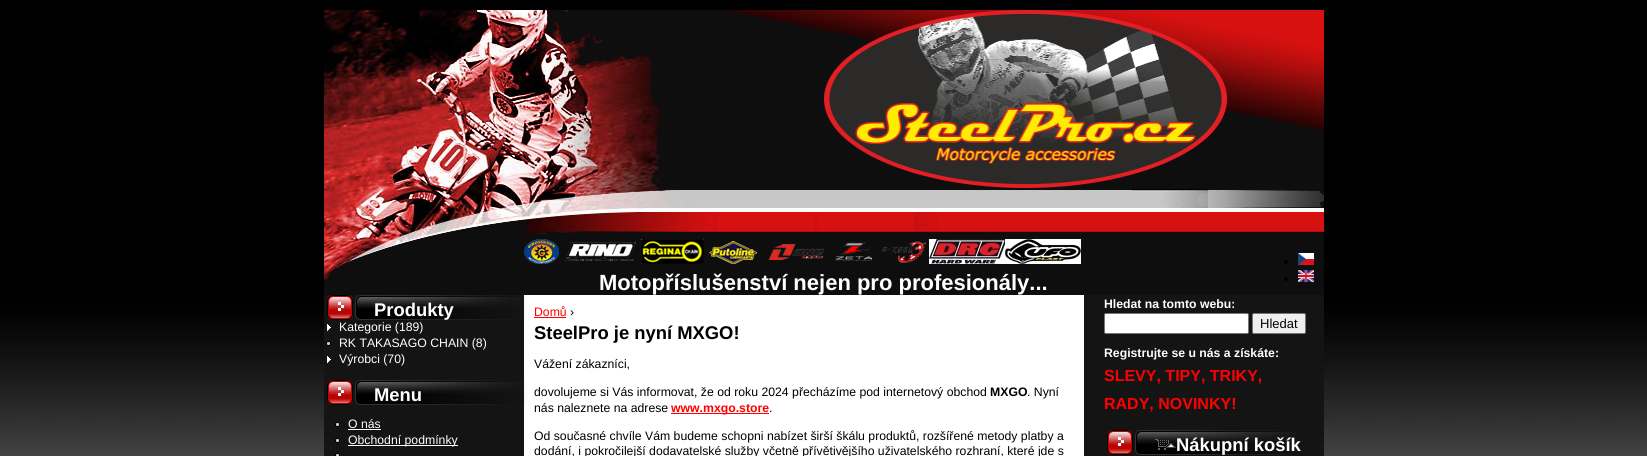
#include <cairo.h>
#include <math.h>
#include <stddef.h>


static void set_color(cairo_t *cr, unsigned color) {
    cairo_set_source_rgb(cr, (color >> 16) / 255.0, (color >> 8 & 255) / 255.0, (color & 255) / 255.0);
}

static void draw_text(cairo_t *cr, double x, double y, const char *s, const char *family, double size, int italic, int bold, unsigned color) {
    cairo_select_font_face(cr, family, italic ? CAIRO_FONT_SLANT_ITALIC : CAIRO_FONT_SLANT_NORMAL,
        bold ? CAIRO_FONT_WEIGHT_BOLD : CAIRO_FONT_WEIGHT_NORMAL);
    cairo_set_font_size(cr, size);
    set_color(cr, color);
    cairo_move_to(cr, x, y);
    cairo_show_text(cr, s);
}

static void fill_rect(cairo_t *cr, double x, double y, double w, double h, unsigned color) {
    set_color(cr, color);
    cairo_rectangle(cr, x, y, w, h);
    cairo_fill(cr);
}

static void rounded_rect(cairo_t *cr, double x, double y, double w, double h, double r) {
    cairo_new_sub_path(cr);
    cairo_arc(cr, x + w - r, y + h - r, r, 0, M_PI / 2);
    cairo_arc(cr, x + r, y + h - r, r, M_PI / 2, M_PI);
    cairo_arc(cr, x + r, y + r, r, M_PI, 1.5 * M_PI);
    cairo_arc(cr, x + w - r, y + r, r, 1.5 * M_PI, 2 * M_PI);
    cairo_close_path(cr);
}

static void draw_image(cairo_t *cr, const char *path, double x, double y, double w, double h) {
    cairo_surface_t *image = cairo_image_surface_create_from_png(path);
    cairo_save(cr);
    cairo_set_source_surface(cr, image, x, y);
    cairo_rectangle(cr, x, y, w, h);
    cairo_fill(cr);
    cairo_restore(cr);
    cairo_surface_destroy(image);
}

int main(void) {
    cairo_surface_t *surface = cairo_image_surface_create(CAIRO_FORMAT_RGB24, 1647, 456);
    cairo_t *cr = cairo_create(surface);
    cairo_font_options_t *options = cairo_font_options_create();
    cairo_font_options_set_hint_metrics(options, CAIRO_HINT_METRICS_OFF);
    cairo_font_options_set_hint_style(options, CAIRO_HINT_STYLE_NONE);
    cairo_set_font_options(cr, options);
    cairo_set_miter_limit(cr, 4);
    set_color(cr, 0xFFFFFF);
    cairo_paint(cr);
    draw_image(cr, "assets/img1.png", 0, 0, 1647, 456);
    draw_image(cr, "assets/img2.png", 324, 10, 1000, 285);
    draw_image(cr, "assets/img3.png", 824, 10, 403, 178);
    draw_image(cr, "assets/img4.png", 524, 239, 35, 25);
    draw_image(cr, "assets/img5.png", 564, 241, 72, 20);
    draw_image(cr, "assets/img6.png", 641, 239, 63, 25);
    draw_image(cr, "assets/img7.png", 709, 241, 48, 23);
    draw_image(cr, "assets/img8.png", 768, 244, 56, 16);
    draw_image(cr, "assets/img9.png", 835, 242, 37, 19);
    draw_image(cr, "assets/img10.png", 881, 241, 45, 22);
    draw_image(cr, "assets/img11.png", 929, 239, 76, 25);
    draw_image(cr, "assets/img12.png", 1005, 239, 76, 25);
    set_color(cr, 0x000000);
    cairo_arc(cr, 1286, 262, 2, 0, 2 * M_PI);
    cairo_fill(cr);
    draw_image(cr, "assets/img13.png", 1298, 253, 16, 12);
    cairo_arc(cr, 1286, 279, 2, 0, 2 * M_PI);
    cairo_fill(cr);
    draw_image(cr, "assets/img14.png", 1298, 270, 16, 12);
    draw_text(cr, 599, 290, "Motopříslušenství nejen pro profesionály...", "Liberation Sans", 22, 0, 1, 0xFFFFFF);
    fill_rect(cr, 324, 295, 1000, 161, 0x141414);
    fill_rect(cr, 524, 295, 560, 161, 0xFFFFFF);
    draw_image(cr, "assets/img15.png", 327, 295, 200, 25);
    draw_text(cr, 374, 316, "Produkty", "Liberation Sans", 18.4, 0, 1, 0xFFFFFF);
    draw_image(cr, "assets/img16.png", 327, 324, 4, 7);
    draw_text(cr, 339, 331, "Kategorie (189)", "Liberation Sans", 12.25, 0, 0, 0xFFFFFF);
    draw_image(cr, "assets/img17.png", 326, 341, 5, 5);
    draw_text(cr, 339, 347, "RK TAKASAGO CHAIN (8)", "Liberation Sans", 12.25, 0, 0, 0xFFFFFF);
    draw_image(cr, "assets/img16.png", 327, 356, 4, 7);
    draw_text(cr, 339, 363, "Výrobci (70)", "Liberation Sans", 12.25, 0, 0, 0xFFFFFF);
    draw_image(cr, "assets/img15.png", 327, 380, 200, 25);
    draw_text(cr, 374, 401, "Menu", "Liberation Sans", 18.4, 0, 1, 0xFFFFFF);
    draw_image(cr, "assets/img17.png", 335, 422, 5, 5);
    draw_text(cr, 348, 428, "O nás", "Liberation Sans", 12.25, 0, 0, 0xFFFFFF);
    fill_rect(cr, 348, 429, 33, 1, 0xFFFFFF);
    draw_image(cr, "assets/img17.png", 335, 438, 5, 5);
    fill_rect(cr, 348, 445, 110, 1, 0xFFFFFF);
    draw_text(cr, 348, 444, "Obchodní podmínky", "Liberation Sans", 12.25, 0, 0, 0xFFFFFF);
    draw_image(cr, "assets/img18.png", 335, 453, 5, 3);
    draw_text(cr, 534, 316, "Domů", "Liberation Sans", 12.25, 0, 0, 0xFF0000);
    fill_rect(cr, 534, 317, 32, 1, 0xFF0000);
    draw_text(cr, 570, 316, "›", "Liberation Sans", 12.25, 0, 0, 0x000000);
    draw_text(cr, 534, 339, "SteelPro je nyní MXGO!", "Liberation Sans", 18.4, 0, 1, 0x000000);
    draw_text(cr, 534, 368, "Vážení zákazníci,", "Liberation Sans", 12.25, 0, 0, 0x000000);
    draw_text(cr, 534, 396, "dovolujeme si Vás informovat, že od roku 2024 přecházíme pod internetový obchod", "Liberation Sans", 12.25, 0, 0, 0x000000);
    draw_text(cr, 990, 396, "MXGO", "Liberation Sans", 12.25, 0, 1, 0x000000);
    draw_text(cr, 1027, 396, ". Nyní", "Liberation Sans", 12.25, 0, 0, 0x000000);
    draw_text(cr, 534, 412, "nás naleznete na adrese", "Liberation Sans", 12.25, 0, 0, 0x000000);
    fill_rect(cr, 671, 413, 98, 1, 0xFF0000);
    draw_text(cr, 671, 412, "www.mxgo.store", "Liberation Sans", 12.25, 0, 1, 0xFF0000);
    draw_text(cr, 769, 412, ".", "Liberation Sans", 12.25, 0, 0, 0x000000);
    draw_text(cr, 534, 440, "Od současné chvíle Vám budeme schopni nabízet širší škálu produktů, rozšířené metody platby a", "Liberation Sans", 12.25, 0, 0, 0x000000);
    draw_text(cr, 534, 455, "dodání, i pokročilejší dodavatelské služby včetně přívětivějšího uživatelského rozhraní, které jde s", "Liberation Sans", 12.25, 0, 0, 0x000000);
    draw_text(cr, 1104, 308, "Hledat na tomto webu:", "Liberation Sans", 12.25, 0, 1, 0xFFFFFF);
    rounded_rect(cr, 1104.5, 313.5, 144, 20, 1.5);
    cairo_fill_preserve(cr);
    set_color(cr, 0x767676);
    cairo_set_line_width(cr, 1);
    cairo_stroke(cr);
    set_color(cr, 0xEFEFEF);
    rounded_rect(cr, 1252.5, 313.5, 53, 20, 1.5);
    cairo_fill_preserve(cr);
    set_color(cr, 0x767676);
    cairo_stroke(cr);
    draw_text(cr, 1260, 328, "Hledat", "Liberation Sans", 13, 0, 0, 0x000000);
    draw_text(cr, 1104, 357, "Registrujte se u nás a získáte:", "Liberation Sans", 12.25, 0, 1, 0xFFFFFF);
    draw_text(cr, 1104, 381, "SLEVY, TIPY, TRIKY,", "Liberation Sans", 16, 0, 1, 0xFF0000);
    draw_text(cr, 1104, 409, "RADY, NOVINKY!", "Liberation Sans", 16, 0, 1, 0xFF0000);
    draw_image(cr, "assets/img19.png", 1107, 430, 190, 25);
    draw_image(cr, "assets/img20.png", 1155, 439, 14, 11);
    draw_image(cr, "assets/img21.png", 1166, 443, 10, 5);
    draw_text(cr, 1176, 451, "Nákupní košík", "Liberation Sans", 18.4, 0, 1, 0xFFFFFF);
    cairo_surface_write_to_png(surface, "output.png");
    cairo_font_options_destroy(options);
    cairo_destroy(cr);
    cairo_surface_destroy(surface);
    return 0;
}
